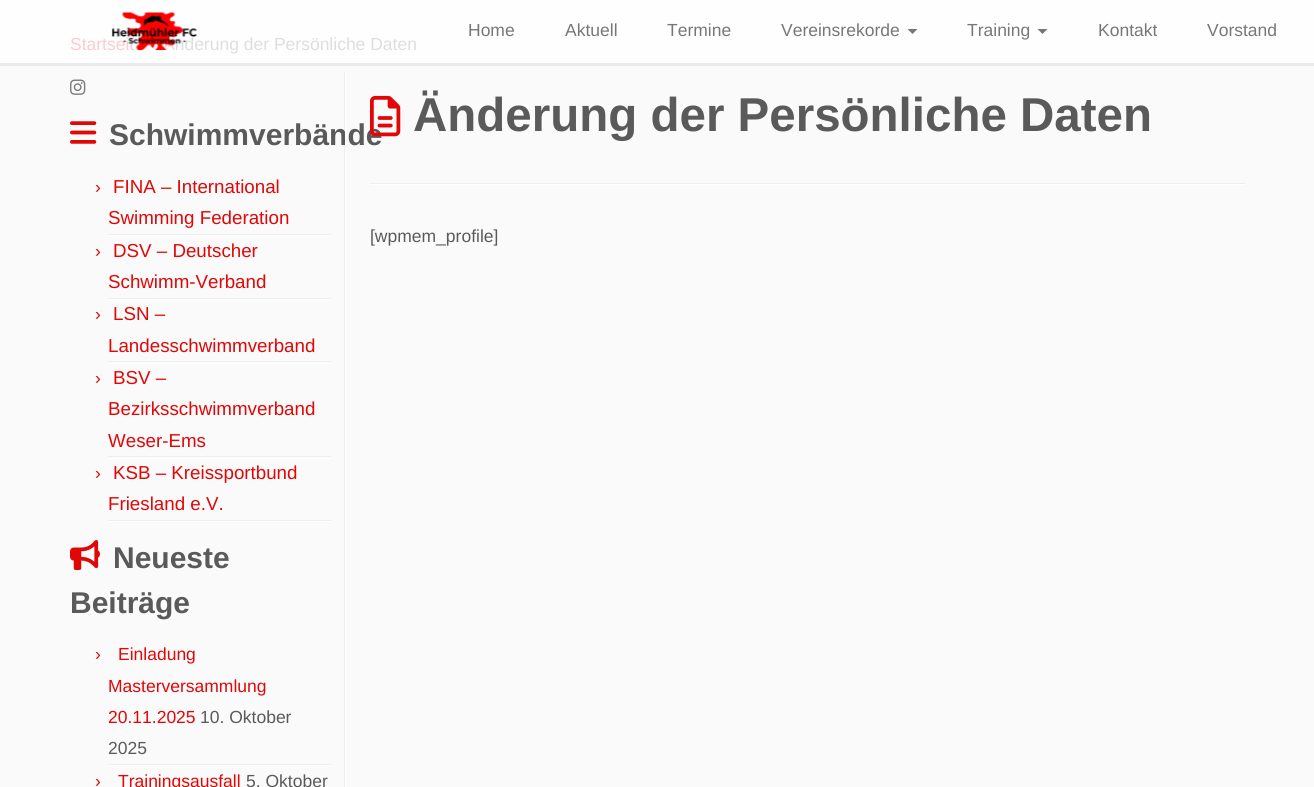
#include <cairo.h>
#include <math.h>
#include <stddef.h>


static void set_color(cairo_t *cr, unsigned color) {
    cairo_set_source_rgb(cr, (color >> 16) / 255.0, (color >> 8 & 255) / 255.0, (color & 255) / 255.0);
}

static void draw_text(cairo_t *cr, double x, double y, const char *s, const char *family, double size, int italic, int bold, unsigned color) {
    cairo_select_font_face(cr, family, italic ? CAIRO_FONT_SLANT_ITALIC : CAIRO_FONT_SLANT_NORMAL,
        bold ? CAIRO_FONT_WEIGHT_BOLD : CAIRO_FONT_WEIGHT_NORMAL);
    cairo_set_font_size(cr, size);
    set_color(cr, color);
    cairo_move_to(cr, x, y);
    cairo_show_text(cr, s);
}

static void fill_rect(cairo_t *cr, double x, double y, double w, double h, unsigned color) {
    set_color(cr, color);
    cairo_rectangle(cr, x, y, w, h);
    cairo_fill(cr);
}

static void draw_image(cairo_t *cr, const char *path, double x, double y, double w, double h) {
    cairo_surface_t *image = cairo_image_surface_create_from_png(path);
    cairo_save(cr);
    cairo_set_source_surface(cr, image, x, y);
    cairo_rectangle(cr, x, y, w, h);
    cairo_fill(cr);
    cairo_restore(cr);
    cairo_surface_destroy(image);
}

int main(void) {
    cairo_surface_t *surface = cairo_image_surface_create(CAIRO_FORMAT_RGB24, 1314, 787);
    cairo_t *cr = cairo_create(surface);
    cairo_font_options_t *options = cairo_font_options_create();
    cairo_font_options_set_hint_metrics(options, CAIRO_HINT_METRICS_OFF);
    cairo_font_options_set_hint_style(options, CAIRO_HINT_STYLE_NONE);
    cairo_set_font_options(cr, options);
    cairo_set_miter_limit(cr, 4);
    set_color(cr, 0xFAFAFA);
    cairo_paint(cr);
    fill_rect(cr, 0, 0, 1314, 63, 0xFEFEFE);
    fill_rect(cr, 0, 63, 1314, 3, 0xE9EAEE);
    draw_text(cr, 70, 50, "Startseit", "Liberation Sans", 17.5, 0, 0, 0xF9CDCD);
    draw_text(cr, 163, 50, "Änderung der Persönliche Daten", "Liberation Sans", 17.5, 0, 0, 0xDEDEDE);
    draw_image(cr, "assets/img1.png", 111, 12, 87, 38);
    draw_text(cr, 468, 36, "Home", "Liberation Sans", 17.5, 0, 0, 0x777777);
    draw_text(cr, 565, 36, "Aktuell", "Liberation Sans", 17.5, 0, 0, 0x777777);
    draw_text(cr, 667, 36, "Termine", "Liberation Sans", 17.5, 0, 0, 0x777777);
    draw_text(cr, 781, 36, "Vereinsrekorde", "Liberation Sans", 17.5, 0, 0, 0x777777);
    cairo_new_path(cr);
    cairo_move_to(cr, 907.5, 29);
    cairo_line_to(cr, 917.5, 29);
    cairo_line_to(cr, 912.5, 34);
    cairo_close_path(cr);
    cairo_fill(cr);
    draw_text(cr, 967, 36, "Training", "Liberation Sans", 17.5, 0, 0, 0x777777);
    cairo_new_path(cr);
    cairo_move_to(cr, 1037.5, 29);
    cairo_line_to(cr, 1047.5, 29);
    cairo_line_to(cr, 1042.5, 34);
    cairo_close_path(cr);
    cairo_fill(cr);
    draw_text(cr, 1098, 36, "Kontakt", "Liberation Sans", 17.5, 0, 0, 0x777777);
    draw_text(cr, 1207, 36, "Vorstand", "Liberation Sans", 17.5, 0, 0, 0x777777);
    fill_rect(cr, 344, 71, 1, 716, 0xEEEEEE);
    draw_image(cr, "assets/img2.png", 70, 79, 16, 16);
    draw_text(cr, 109, 145, "Schwimmverbände", "Liberation Sans", 30, 0, 1, 0x5A5A5A);
    fill_rect(cr, 345, 71, 1, 716, 0xFFFFFF);
    draw_image(cr, "assets/img3.png", 70, 121, 27, 23);
    fill_rect(cr, 108, 234, 223, 1, 0xEEEEEE);
    draw_text(cr, 95, 193, "›", "Liberation Sans", 17.5, 0, 0, 0xE10707);
    draw_text(cr, 113, 193, "FINA – International", "Liberation Sans", 18.75, 0, 0, 0xE10707);
    draw_text(cr, 108, 224, "Swimming Federation", "Liberation Sans", 18.75, 0, 0, 0xE10707);
    fill_rect(cr, 108, 235, 223, 1, 0xFFFFFF);
    fill_rect(cr, 108, 298, 223, 1, 0xEEEEEE);
    draw_text(cr, 95, 257, "›", "Liberation Sans", 17.5, 0, 0, 0xE10707);
    draw_text(cr, 113, 257, "DSV – Deutscher", "Liberation Sans", 18.75, 0, 0, 0xE10707);
    draw_text(cr, 108, 288, "Schwimm-Verband", "Liberation Sans", 18.75, 0, 0, 0xE10707);
    fill_rect(cr, 108, 299, 223, 1, 0xFFFFFF);
    fill_rect(cr, 108, 361, 223, 1, 0xEEEEEE);
    draw_text(cr, 95, 320, "›", "Liberation Sans", 17.5, 0, 0, 0xE10707);
    draw_text(cr, 113, 320, "LSN –", "Liberation Sans", 18.75, 0, 0, 0xE10707);
    draw_text(cr, 108, 352, "Landesschwimmverband", "Liberation Sans", 18.75, 0, 0, 0xE10707);
    fill_rect(cr, 108, 363, 223, 1, 0xFFFFFF);
    fill_rect(cr, 108, 456, 223, 1, 0xEEEEEE);
    draw_text(cr, 95, 384, "›", "Liberation Sans", 17.5, 0, 0, 0xE10707);
    draw_text(cr, 113, 384, "BSV –", "Liberation Sans", 18.75, 0, 0, 0xE10707);
    draw_text(cr, 108, 415, "Bezirksschwimmverband", "Liberation Sans", 18.75, 0, 0, 0xE10707);
    draw_text(cr, 108, 447, "Weser-Ems", "Liberation Sans", 18.75, 0, 0, 0xE10707);
    fill_rect(cr, 108, 458, 223, 1, 0xFFFFFF);
    fill_rect(cr, 108, 520, 223, 1, 0xEEEEEE);
    draw_text(cr, 95, 479, "›", "Liberation Sans", 17.5, 0, 0, 0xE10707);
    draw_text(cr, 113, 479, "KSB – Kreissportbund", "Liberation Sans", 18.75, 0, 0, 0xE10707);
    draw_text(cr, 108, 510, "Friesland e.V.", "Liberation Sans", 18.75, 0, 0, 0xE10707);
    fill_rect(cr, 108, 521, 223, 1, 0xFFFFFF);
    draw_image(cr, "assets/img4.png", 70, 540, 30, 30);
    draw_text(cr, 113, 568, "Neueste", "Liberation Sans", 30, 0, 1, 0x5A5A5A);
    draw_text(cr, 70, 613, "Beiträge", "Liberation Sans", 30, 0, 1, 0x5A5A5A);
    fill_rect(cr, 108, 764, 223, 1, 0xEEEEEE);
    draw_text(cr, 95, 660, "›", "Liberation Sans", 17.5, 0, 0, 0xE10707);
    draw_text(cr, 118, 660, "Einladung", "Liberation Sans", 17.5, 0, 0, 0xE10707);
    draw_text(cr, 108, 692, "Masterversammlung", "Liberation Sans", 17.5, 0, 0, 0xE10707);
    draw_text(cr, 108, 723, "20.11.2025", "Liberation Sans", 17.5, 0, 0, 0xE10707);
    draw_text(cr, 200, 723, "10. Oktober", "Liberation Sans", 17.5, 0, 0, 0x5A5A5A);
    draw_text(cr, 108, 754, "2025", "Liberation Sans", 17.5, 0, 0, 0x5A5A5A);
    fill_rect(cr, 108, 765, 223, 1, 0xFFFFFF);
    draw_text(cr, 95, 787, "›", "Liberation Sans", 17.5, 0, 0, 0xE10707);
    draw_text(cr, 118, 787, "Trainingsausfall", "Liberation Sans", 17.5, 0, 0, 0xE10707);
    draw_text(cr, 246, 787, "5. Oktober", "Liberation Sans", 17.5, 0, 0, 0x5A5A5A);
    draw_image(cr, "assets/img5.png", 370, 95, 31, 42);
    draw_text(cr, 413, 131, "Änderung der Persönliche Daten", "Liberation Sans", 47.5, 0, 1, 0x5A5A5A);
    fill_rect(cr, 370, 183, 875, 1, 0xEEEEEE);
    fill_rect(cr, 370, 184, 875, 1, 0xFFFFFF);
    draw_text(cr, 370, 242, "[wpmem_profile]", "Liberation Sans", 17.5, 0, 0, 0x5A5A5A);
    cairo_surface_write_to_png(surface, "output.png");
    cairo_font_options_destroy(options);
    cairo_destroy(cr);
    cairo_surface_destroy(surface);
    return 0;
}
